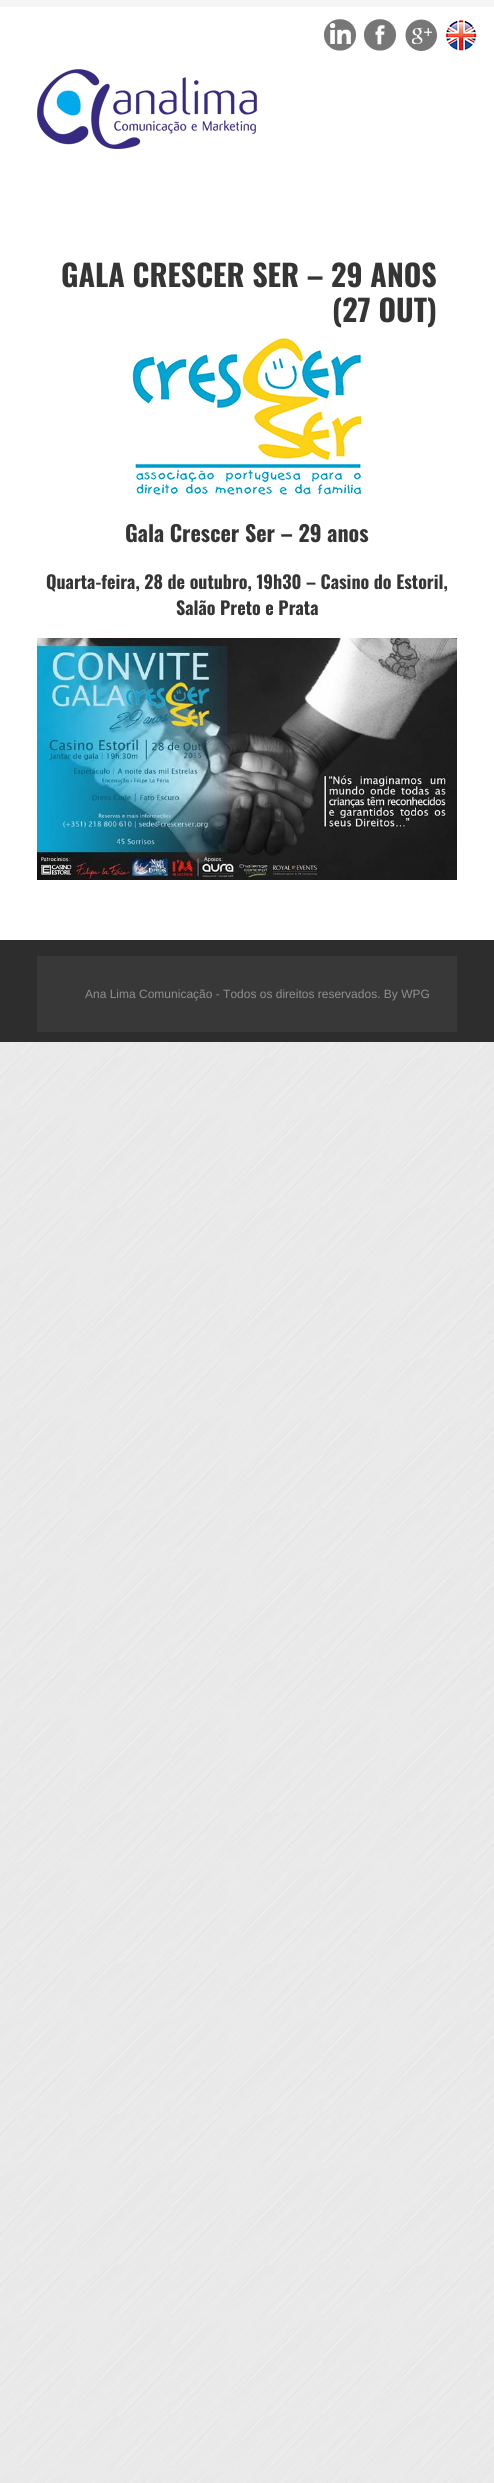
#include <cairo.h>
#include <math.h>
#include <stddef.h>


static void set_color(cairo_t *cr, unsigned color) {
    cairo_set_source_rgb(cr, (color >> 16) / 255.0, (color >> 8 & 255) / 255.0, (color & 255) / 255.0);
}

static void draw_text(cairo_t *cr, double x, double y, const char *s, const char *family, double size, int italic, int bold, unsigned color) {
    cairo_select_font_face(cr, family, italic ? CAIRO_FONT_SLANT_ITALIC : CAIRO_FONT_SLANT_NORMAL,
        bold ? CAIRO_FONT_WEIGHT_BOLD : CAIRO_FONT_WEIGHT_NORMAL);
    cairo_set_font_size(cr, size);
    set_color(cr, color);
    cairo_move_to(cr, x, y);
    cairo_show_text(cr, s);
}

static void fill_rect(cairo_t *cr, double x, double y, double w, double h, unsigned color) {
    set_color(cr, color);
    cairo_rectangle(cr, x, y, w, h);
    cairo_fill(cr);
}

static void draw_image(cairo_t *cr, const char *path, double x, double y, double w, double h) {
    cairo_surface_t *image = cairo_image_surface_create_from_png(path);
    cairo_save(cr);
    cairo_set_source_surface(cr, image, x, y);
    cairo_rectangle(cr, x, y, w, h);
    cairo_fill(cr);
    cairo_restore(cr);
    cairo_surface_destroy(image);
}

int main(void) {
    cairo_surface_t *surface = cairo_image_surface_create(CAIRO_FORMAT_RGB24, 494, 2483);
    cairo_t *cr = cairo_create(surface);
    cairo_font_options_t *options = cairo_font_options_create();
    cairo_font_options_set_hint_metrics(options, CAIRO_HINT_METRICS_OFF);
    cairo_font_options_set_hint_style(options, CAIRO_HINT_STYLE_NONE);
    cairo_set_font_options(cr, options);
    cairo_set_miter_limit(cr, 4);
    set_color(cr, 0xFFFFFF);
    cairo_paint(cr);
    draw_image(cr, "assets/img1.png", 0, 1042, 494, 1441);
    fill_rect(cr, 0, 0, 494, 7, 0xF5F5F5);
    draw_image(cr, "assets/img2.png", 324, 19, 32, 32);
    draw_image(cr, "assets/img3.png", 364, 19, 32, 32);
    draw_image(cr, "assets/img4.png", 405, 19, 32, 32);
    draw_image(cr, "assets/img5.png", 446, 20, 31, 31);
    draw_image(cr, "assets/img6.png", 37, 69, 220, 80);
    draw_text(cr, 61, 287, "GALA CRESCER SER – 29 ANOS", "Oswald", 30, 0, 1, 0x353535);
    draw_text(cr, 332, 322, "(27 OUT)", "Oswald", 30, 0, 1, 0x353535);
    draw_image(cr, "assets/img7.png", 132, 338, 230, 158);
    draw_text(cr, 125, 542, "Gala Crescer Ser – 29 anos", "Oswald", 22, 0, 1, 0x353535);
    draw_text(cr, 46, 589, "Quarta-feira, 28 de outubro, 19h30 – Casino do Estoril,", "Oswald", 18, 0, 1, 0x353535);
    draw_text(cr, 176, 615, "Salão Preto e Prata", "Oswald", 18, 0, 1, 0x353535);
    draw_image(cr, "assets/img8.png", 37, 638, 420, 242);
    fill_rect(cr, 0, 940, 494, 102, 0x2D2D2D);
    fill_rect(cr, 37, 956, 420, 76, 0x383838);
    draw_text(cr, 85, 998, "Ana Lima Comunicação - Todos os direitos reservados. By WPG", "Liberation Sans", 12, 0, 0, 0x8F8F8F);
    cairo_surface_write_to_png(surface, "output.png");
    cairo_font_options_destroy(options);
    cairo_destroy(cr);
    cairo_surface_destroy(surface);
    return 0;
}
